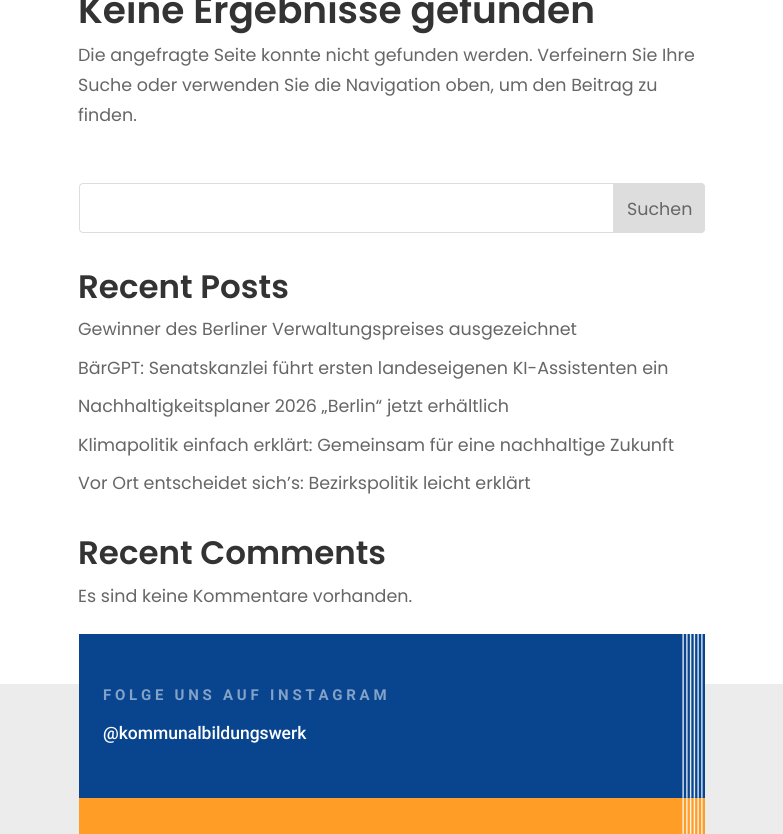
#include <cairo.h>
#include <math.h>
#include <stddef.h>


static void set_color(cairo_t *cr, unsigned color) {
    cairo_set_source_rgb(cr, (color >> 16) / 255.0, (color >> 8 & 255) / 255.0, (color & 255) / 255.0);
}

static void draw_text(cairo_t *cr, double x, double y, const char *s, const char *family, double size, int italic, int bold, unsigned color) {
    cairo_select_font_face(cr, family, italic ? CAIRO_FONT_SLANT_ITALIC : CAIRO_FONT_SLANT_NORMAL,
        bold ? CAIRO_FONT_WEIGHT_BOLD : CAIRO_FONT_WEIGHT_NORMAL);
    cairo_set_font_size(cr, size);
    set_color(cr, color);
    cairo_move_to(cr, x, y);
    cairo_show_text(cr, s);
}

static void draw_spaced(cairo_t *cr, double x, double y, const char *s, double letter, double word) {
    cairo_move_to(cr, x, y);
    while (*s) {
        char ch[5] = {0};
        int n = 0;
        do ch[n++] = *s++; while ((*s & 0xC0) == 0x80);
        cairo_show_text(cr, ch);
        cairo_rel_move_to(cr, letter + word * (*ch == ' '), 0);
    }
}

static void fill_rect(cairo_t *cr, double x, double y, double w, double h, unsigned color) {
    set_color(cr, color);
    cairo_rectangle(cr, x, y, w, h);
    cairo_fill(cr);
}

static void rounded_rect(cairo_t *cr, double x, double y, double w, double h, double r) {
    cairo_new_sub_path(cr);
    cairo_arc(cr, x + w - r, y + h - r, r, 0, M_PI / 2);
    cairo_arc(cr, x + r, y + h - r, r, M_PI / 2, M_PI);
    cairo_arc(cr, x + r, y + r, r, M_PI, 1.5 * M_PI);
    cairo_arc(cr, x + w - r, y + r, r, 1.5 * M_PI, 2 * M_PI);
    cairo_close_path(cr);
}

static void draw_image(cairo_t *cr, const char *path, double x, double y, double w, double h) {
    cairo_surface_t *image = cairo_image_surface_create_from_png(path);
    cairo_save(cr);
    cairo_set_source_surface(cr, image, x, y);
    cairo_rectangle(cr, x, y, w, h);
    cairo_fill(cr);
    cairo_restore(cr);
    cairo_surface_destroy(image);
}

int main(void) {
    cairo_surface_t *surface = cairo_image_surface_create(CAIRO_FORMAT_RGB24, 783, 834);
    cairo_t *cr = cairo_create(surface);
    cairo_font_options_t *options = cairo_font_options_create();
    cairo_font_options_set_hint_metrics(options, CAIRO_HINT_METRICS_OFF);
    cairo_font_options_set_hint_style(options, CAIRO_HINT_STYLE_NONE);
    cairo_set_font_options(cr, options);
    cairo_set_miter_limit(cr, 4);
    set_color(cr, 0xFFFFFF);
    cairo_paint(cr);
    draw_text(cr, 78, 23, "Keine Ergebnisse gefunden", "Poppins SemiBold", 37.5, 0, 0, 0x333333);
    draw_text(cr, 78, 61, "Die angefragte Seite konnte nicht gefunden werden. Verfeinern Sie Ihre", "Poppins", 17.5, 0, 0, 0x666666);
    draw_text(cr, 78, 91, "Suche oder verwenden Sie die Navigation oben, um den Beitrag zu", "Poppins", 17.5, 0, 0, 0x666666);
    draw_text(cr, 78, 121, "finden.", "Poppins", 17.5, 0, 0, 0x666666);
    rounded_rect(cr, 79.5, 183.5, 625, 49, 3.5);
    set_color(cr, 0xDDDDDD);
    cairo_set_line_width(cr, 1);
    cairo_stroke(cr);
    cairo_new_path(cr);
    cairo_move_to(cr, 613.5, 183.5);
    cairo_line_to(cr, 701, 183.5);
    cairo_curve_to(cr, 703, 183.5, 704.5, 185, 704.5, 187);
    cairo_line_to(cr, 704.5, 229);
    cairo_curve_to(cr, 704.5, 231, 703, 232.5, 701, 232.5);
    cairo_line_to(cr, 613.5, 232.5);
    cairo_close_path(cr);
    cairo_fill_preserve(cr);
    cairo_stroke(cr);
    draw_text(cr, 627, 215, "Suchen", "Poppins", 17.5, 0, 0, 0x666666);
    draw_text(cr, 78, 298, "Recent Posts", "Poppins SemiBold", 32.5, 0, 0, 0x333333);
    draw_text(cr, 78, 335, "Gewinner des Berliner Verwaltungspreises ausgezeichnet", "Poppins", 17.5, 0, 0, 0x666666);
    draw_text(cr, 78, 374, "BärGPT: Senatskanzlei führt ersten landeseigenen KI-Assistenten ein", "Poppins", 17.5, 0, 0, 0x666666);
    draw_text(cr, 78, 412, "Nachhaltigkeitsplaner 2026 „Berlin“ jetzt erhältlich", "Poppins", 17.5, 0, 0, 0x666666);
    draw_text(cr, 78, 451, "Klimapolitik einfach erklärt: Gemeinsam für eine nachhaltige Zukunft", "Poppins", 17.5, 0, 0, 0x666666);
    draw_text(cr, 78, 489, "Vor Ort entscheidet sich’s: Bezirkspolitik leicht erklärt", "Poppins", 17.5, 0, 0, 0x666666);
    draw_text(cr, 78, 564, "Recent Comments", "Poppins SemiBold", 32.5, 0, 0, 0x333333);
    draw_text(cr, 78, 602, "Es sind keine Kommentare vorhanden.", "Poppins", 17.5, 0, 0, 0x666666);
    fill_rect(cr, 0, 684, 783, 150, 0xECECEC);
    fill_rect(cr, 79, 634, 626, 164, 0x09458F);
    draw_image(cr, "assets/img1.png", 682, 634, 21, 164);
    cairo_select_font_face(cr, "Roboto", CAIRO_FONT_SLANT_NORMAL, CAIRO_FONT_WEIGHT_BOLD);
    cairo_set_font_size(cr, 15);
    set_color(cr, 0x84A2C7);
    draw_spaced(cr, 103, 700, "FOLGE UNS AUF INSTAGRAM", 3.75, 0);
    draw_text(cr, 103, 739, "@kommunalbildungswerk", "Roboto Medium", 17.5, 0, 0, 0xFFFFFF);
    fill_rect(cr, 79, 798, 626, 36, 0xFF9D27);
    draw_image(cr, "assets/img2.png", 682, 797, 21, 37);
    cairo_surface_write_to_png(surface, "output.png");
    cairo_font_options_destroy(options);
    cairo_destroy(cr);
    cairo_surface_destroy(surface);
    return 0;
}
